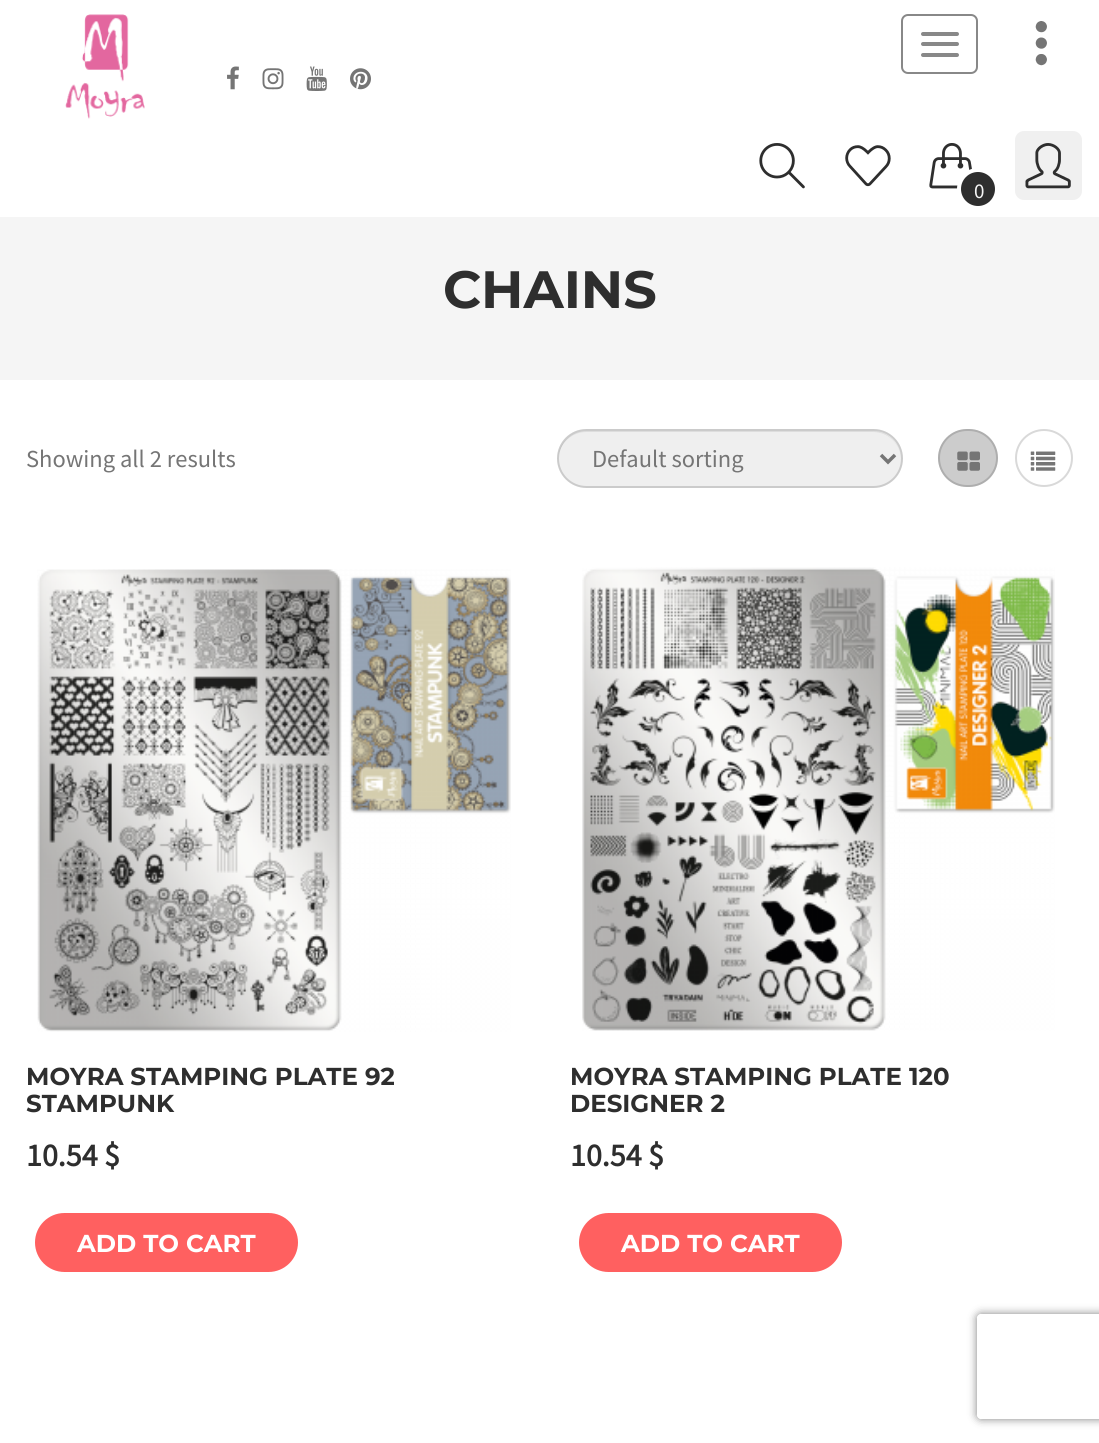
#include <cairo.h>
#include <math.h>
#include <stddef.h>


static void set_color(cairo_t *cr, unsigned color) {
    cairo_set_source_rgb(cr, (color >> 16) / 255.0, (color >> 8 & 255) / 255.0, (color & 255) / 255.0);
}

static void draw_text(cairo_t *cr, double x, double y, const char *s, const char *family, double size, int italic, int bold, unsigned color) {
    cairo_select_font_face(cr, family, italic ? CAIRO_FONT_SLANT_ITALIC : CAIRO_FONT_SLANT_NORMAL,
        bold ? CAIRO_FONT_WEIGHT_BOLD : CAIRO_FONT_WEIGHT_NORMAL);
    cairo_set_font_size(cr, size);
    set_color(cr, color);
    cairo_move_to(cr, x, y);
    cairo_show_text(cr, s);
}

static void fill_rect(cairo_t *cr, double x, double y, double w, double h, unsigned color) {
    set_color(cr, color);
    cairo_rectangle(cr, x, y, w, h);
    cairo_fill(cr);
}

static void rounded_rect(cairo_t *cr, double x, double y, double w, double h, double r) {
    cairo_new_sub_path(cr);
    cairo_arc(cr, x + w - r, y + h - r, r, 0, M_PI / 2);
    cairo_arc(cr, x + r, y + h - r, r, M_PI / 2, M_PI);
    cairo_arc(cr, x + r, y + r, r, M_PI, 1.5 * M_PI);
    cairo_arc(cr, x + w - r, y + r, r, 1.5 * M_PI, 2 * M_PI);
    cairo_close_path(cr);
}

static void draw_shadow(cairo_t *cr, double x, double y, double w, double h, double r, double blur, double alpha) {
    cairo_push_group_with_content(cr, CAIRO_CONTENT_ALPHA);
    cairo_set_operator(cr, CAIRO_OPERATOR_SOURCE);
    for (int i = 15; i >= -15 && fmin(w, h) + blur * i / 3 > 0; i -= 2) {
        double e = blur * i / 6;
        cairo_set_source_rgba(cr, 0, 0, 0, alpha * erfc((i - 1) / 8.5) / 2);
        rounded_rect(cr, x - e, y - e, w + 2 * e, h + 2 * e, fmax(0, fmin(r + e + blur * .6, fmin(w, h) / 2 + e)));
        cairo_fill(cr);
    }
    cairo_pattern_t *soft = cairo_pop_group(cr);
    cairo_mask(cr, soft);
    cairo_pattern_destroy(soft);
}

static void draw_image(cairo_t *cr, const char *path, double x, double y, double w, double h) {
    cairo_surface_t *image = cairo_image_surface_create_from_png(path);
    cairo_save(cr);
    cairo_set_source_surface(cr, image, x, y);
    cairo_rectangle(cr, x, y, w, h);
    cairo_fill(cr);
    cairo_restore(cr);
    cairo_surface_destroy(image);
}

int main(void) {
    cairo_surface_t *surface = cairo_image_surface_create(CAIRO_FORMAT_RGB24, 1099, 1443);
    cairo_t *cr = cairo_create(surface);
    cairo_font_options_t *options = cairo_font_options_create();
    cairo_font_options_set_hint_metrics(options, CAIRO_HINT_METRICS_OFF);
    cairo_font_options_set_hint_style(options, CAIRO_HINT_STYLE_NONE);
    cairo_set_font_options(cr, options);
    cairo_set_miter_limit(cr, 4);
    set_color(cr, 0xFFFFFF);
    cairo_paint(cr);
    draw_image(cr, "assets/img1.png", 65, 14, 80, 105);
    rounded_rect(cr, 902, 15, 75, 58, 6);
    set_color(cr, 0x888888);
    cairo_stroke(cr);
    rounded_rect(cr, 921, 32, 38, 4, 2);
    cairo_fill(cr);
    rounded_rect(cr, 921, 42, 38, 4, 2);
    cairo_fill(cr);
    rounded_rect(cr, 921, 53, 38, 4, 2);
    cairo_fill(cr);
    draw_image(cr, "assets/img2.png", 1035, 21, 12, 45);
    draw_image(cr, "assets/img3.png", 227, 66, 12, 24);
    draw_image(cr, "assets/img4.png", 262, 68, 22, 22);
    draw_image(cr, "assets/img5.png", 306, 66, 21, 25);
    draw_image(cr, "assets/img6.png", 350, 68, 21, 22);
    draw_image(cr, "assets/img7.png", 759, 143, 46, 46);
    draw_image(cr, "assets/img8.png", 845, 145, 46, 42);
    set_color(cr, 0xF0F0F0);
    rounded_rect(cr, 1015, 131, 67, 69, 9);
    cairo_fill(cr);
    draw_image(cr, "assets/img9.png", 1025, 143, 46, 46);
    draw_image(cr, "assets/img10.png", 929, 143, 43, 46);
    set_color(cr, 0x2E2E2E);
    cairo_arc(cr, 978, 189, 19, 0, 2 * M_PI);
    cairo_fill_preserve(cr);
    set_color(cr, 0xFFFFFF);
    cairo_set_line_width(cr, 4);
    cairo_stroke(cr);
    draw_text(cr, 974, 198, "0", "Source Sans Pro", 21, 0, 0, 0xF5F5F5);
    fill_rect(cr, 0, 217, 1099, 163, 0xF5F5F5);
    draw_text(cr, 443, 308, "CHAINS", "Montserrat", 52.5, 0, 1, 0x2E2E2E);
    draw_text(cr, 26, 467, "Showing all 2 results", "Source Sans Pro", 24.5, 0, 0, 0x757575);
    set_color(cr, 0xEFEFEF);
    rounded_rect(cr, 557, 429, 346, 59, 29.5);
    cairo_fill(cr);
    set_color(cr, 0xDDDDDD);
    cairo_new_path(cr);
    cairo_move_to(cr, 586, 432);
    cairo_line_to(cr, 873, 432);
    cairo_curve_to(cr, 889, 432, 901, 445, 901, 460);
    cairo_line_to(cr, 901, 459);
    cairo_curve_to(cr, 901, 444, 888, 431, 873, 431);
    cairo_line_to(cr, 586, 431);
    cairo_curve_to(cr, 571, 431, 558, 444, 558, 459);
    cairo_line_to(cr, 558, 460);
    cairo_curve_to(cr, 558, 445, 571, 432, 586, 432);
    cairo_close_path(cr);
    cairo_fill(cr);
    rounded_rect(cr, 558, 430, 344, 57, 28.5);
    cairo_set_source_rgba(cr, 0, 0, 0, 0.15);
    cairo_set_line_width(cr, 2);
    cairo_stroke(cr);
    cairo_new_path(cr);
    cairo_move_to(cr, 881, 455);
    cairo_line_to(cr, 888, 462);
    cairo_line_to(cr, 895, 455);
    set_color(cr, 0x757575);
    cairo_set_line_width(cr, 3.5);
    cairo_stroke(cr);
    draw_text(cr, 592, 467, "Default sorting", "Source Sans Pro", 24.5, 0, 0, 0x757575);
    set_color(cr, 0xCCCCCC);
    rounded_rect(cr, 938, 429, 60, 58, 29);
    cairo_fill(cr);
    rounded_rect(cr, 939, 430, 58, 56, 28);
    cairo_set_source_rgba(cr, 0, 0, 0, 0.15);
    cairo_set_line_width(cr, 2);
    cairo_stroke(cr);
    draw_image(cr, "assets/img11.png", 957, 451, 23, 20);
    cairo_arc(cr, 1044, 458, 28, 0, 2 * M_PI);
    set_color(cr, 0xD9D9D9);
    cairo_stroke(cr);
    draw_image(cr, "assets/img12.png", 1030, 451, 26, 20);
    draw_image(cr, "assets/img13.png", 37, 569, 474, 463);
    draw_text(cr, 26, 1085, "MOYRA STAMPING PLATE 92", "Montserrat", 24.5, 0, 1, 0x2E2E2E);
    draw_text(cr, 26, 1112, "STAMPUNK", "Montserrat", 24.5, 0, 1, 0x2E2E2E);
    draw_text(cr, 26, 1166, "10.54 $", "Source Sans Pro", 32, 0, 1, 0x2E2E2E);
    set_color(cr, 0xFF6060);
    rounded_rect(cr, 35, 1213, 263, 59, 29.5);
    cairo_fill(cr);
    draw_text(cr, 77, 1252, "ADD TO CART", "Montserrat", 24.5, 0, 1, 0xFFFFFF);
    draw_image(cr, "assets/img14.png", 582, 567, 473, 464);
    draw_text(cr, 570, 1085, "MOYRA STAMPING PLATE 120", "Montserrat", 24.5, 0, 1, 0x2E2E2E);
    draw_text(cr, 570, 1112, "DESIGNER 2", "Montserrat", 24.5, 0, 1, 0x2E2E2E);
    draw_text(cr, 570, 1166, "10.54 $", "Source Sans Pro", 32, 0, 1, 0x2E2E2E);
    set_color(cr, 0xFF6060);
    rounded_rect(cr, 579, 1213, 263, 59, 29.5);
    cairo_fill(cr);
    draw_text(cr, 621, 1252, "ADD TO CART", "Montserrat", 24.5, 0, 1, 0xFFFFFF);
    cairo_save(cr);
    cairo_set_fill_rule(cr, CAIRO_FILL_RULE_EVEN_ODD);
    cairo_new_path(cr);
    cairo_move_to(cr, 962, 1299);
    cairo_line_to(cr, 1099, 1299);
    cairo_line_to(cr, 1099, 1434);
    cairo_line_to(cr, 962, 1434);
    cairo_close_path(cr);
    cairo_move_to(cr, 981, 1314);
    cairo_line_to(cr, 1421, 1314);
    cairo_curve_to(cr, 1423, 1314, 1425, 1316, 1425, 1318);
    cairo_line_to(cr, 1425, 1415);
    cairo_curve_to(cr, 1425, 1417, 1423, 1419, 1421, 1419);
    cairo_line_to(cr, 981, 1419);
    cairo_curve_to(cr, 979, 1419, 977, 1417, 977, 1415);
    cairo_line_to(cr, 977, 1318);
    cairo_curve_to(cr, 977, 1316, 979, 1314, 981, 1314);
    cairo_close_path(cr);
    cairo_clip(cr);
    set_color(cr, 0x808080);
    draw_shadow(cr, 977, 1314, 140, 105, 4, 4.5, 1);
    cairo_restore(cr);
    cairo_surface_write_to_png(surface, "output.png");
    cairo_font_options_destroy(options);
    cairo_destroy(cr);
    cairo_surface_destroy(surface);
    return 0;
}
